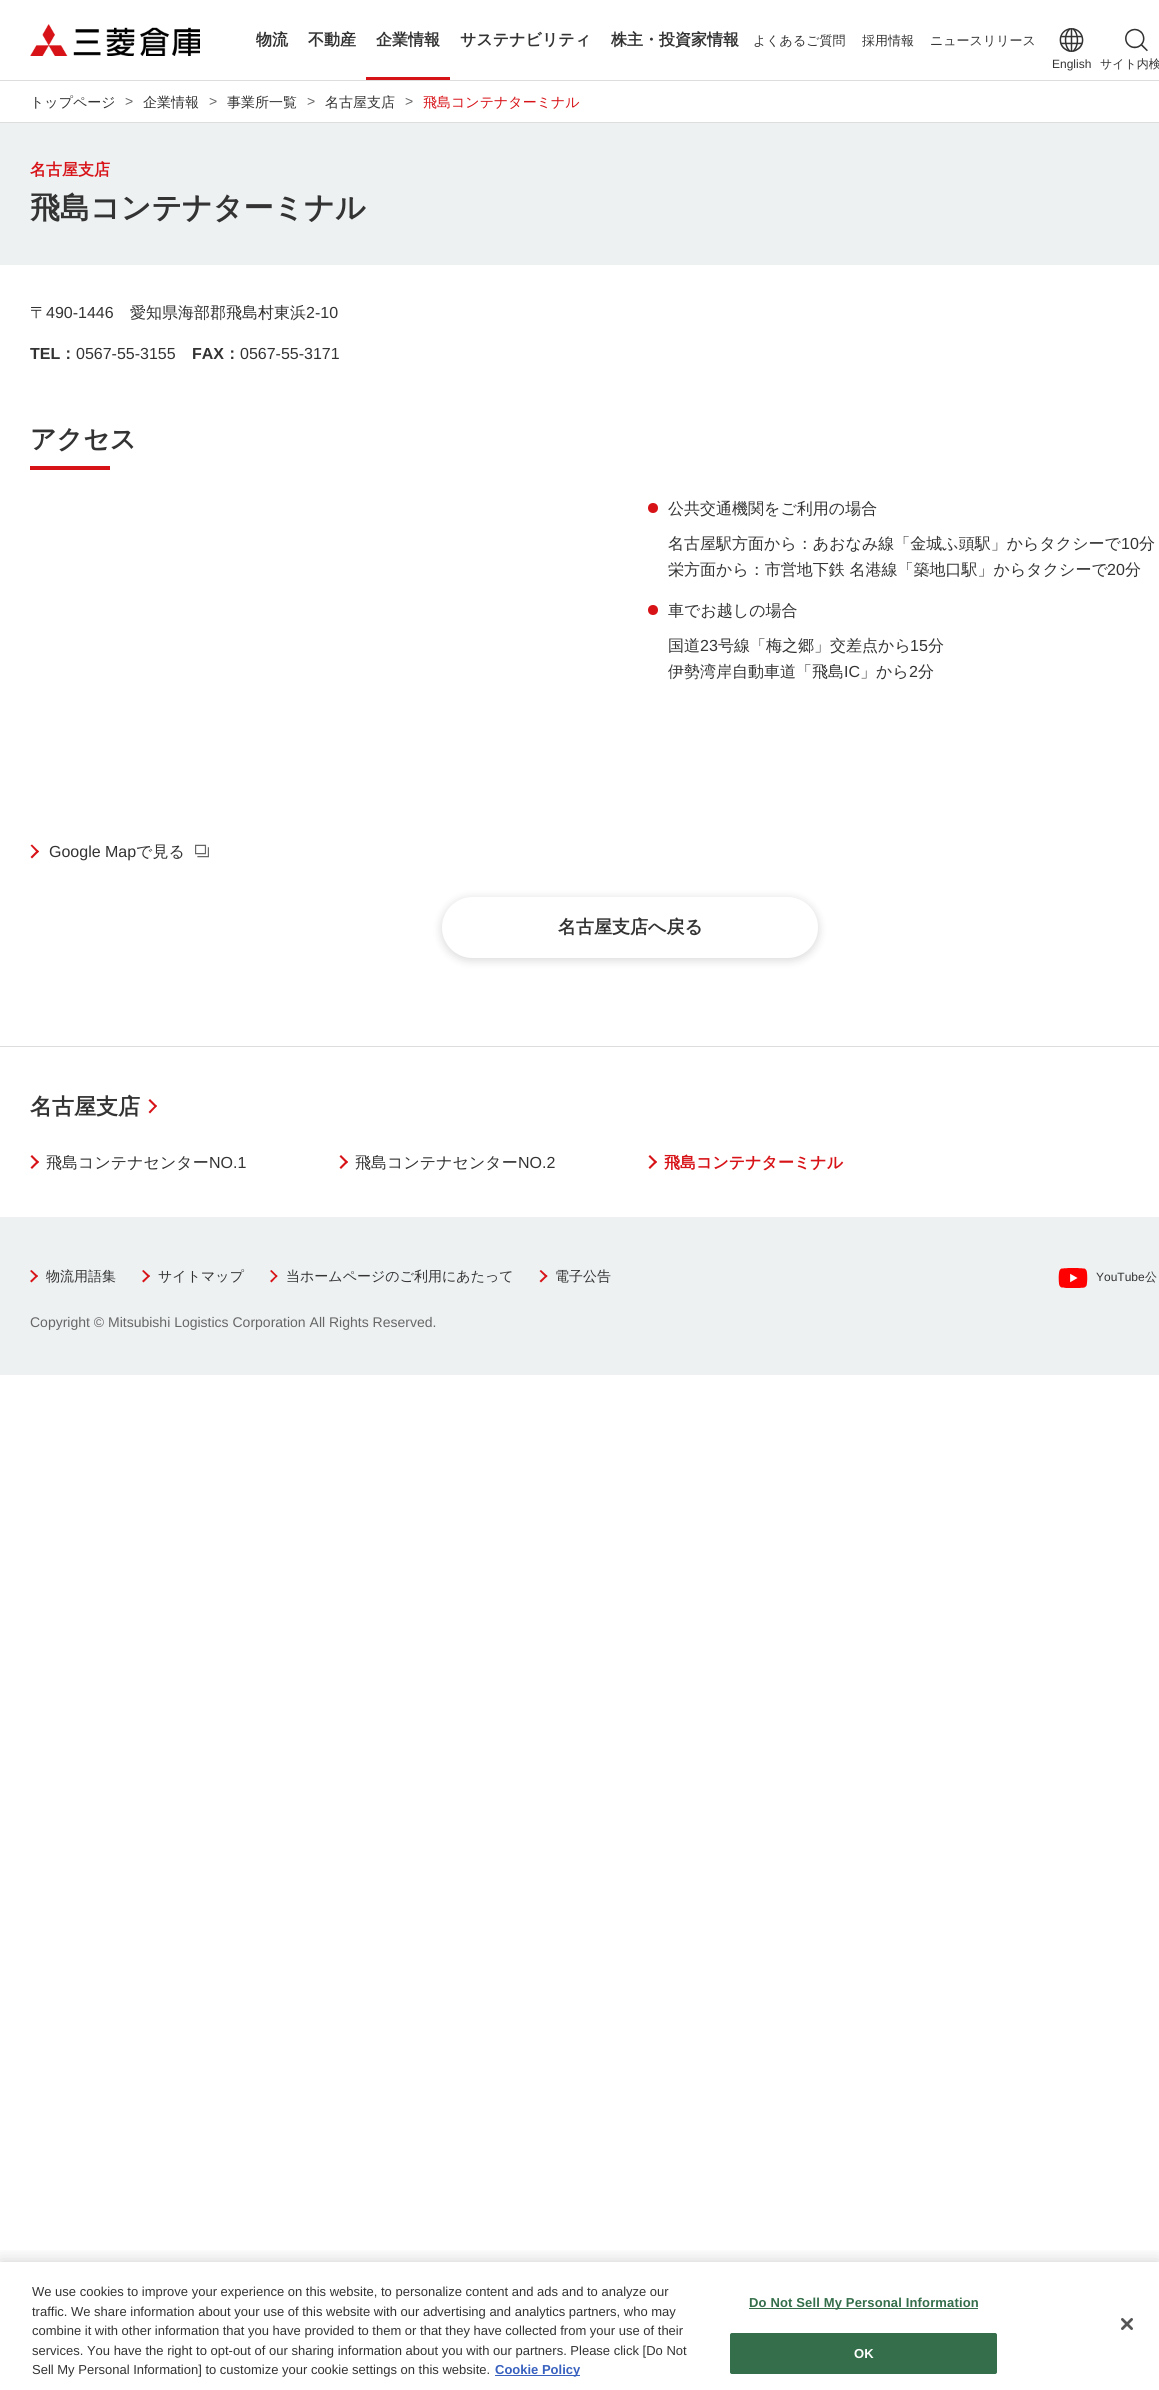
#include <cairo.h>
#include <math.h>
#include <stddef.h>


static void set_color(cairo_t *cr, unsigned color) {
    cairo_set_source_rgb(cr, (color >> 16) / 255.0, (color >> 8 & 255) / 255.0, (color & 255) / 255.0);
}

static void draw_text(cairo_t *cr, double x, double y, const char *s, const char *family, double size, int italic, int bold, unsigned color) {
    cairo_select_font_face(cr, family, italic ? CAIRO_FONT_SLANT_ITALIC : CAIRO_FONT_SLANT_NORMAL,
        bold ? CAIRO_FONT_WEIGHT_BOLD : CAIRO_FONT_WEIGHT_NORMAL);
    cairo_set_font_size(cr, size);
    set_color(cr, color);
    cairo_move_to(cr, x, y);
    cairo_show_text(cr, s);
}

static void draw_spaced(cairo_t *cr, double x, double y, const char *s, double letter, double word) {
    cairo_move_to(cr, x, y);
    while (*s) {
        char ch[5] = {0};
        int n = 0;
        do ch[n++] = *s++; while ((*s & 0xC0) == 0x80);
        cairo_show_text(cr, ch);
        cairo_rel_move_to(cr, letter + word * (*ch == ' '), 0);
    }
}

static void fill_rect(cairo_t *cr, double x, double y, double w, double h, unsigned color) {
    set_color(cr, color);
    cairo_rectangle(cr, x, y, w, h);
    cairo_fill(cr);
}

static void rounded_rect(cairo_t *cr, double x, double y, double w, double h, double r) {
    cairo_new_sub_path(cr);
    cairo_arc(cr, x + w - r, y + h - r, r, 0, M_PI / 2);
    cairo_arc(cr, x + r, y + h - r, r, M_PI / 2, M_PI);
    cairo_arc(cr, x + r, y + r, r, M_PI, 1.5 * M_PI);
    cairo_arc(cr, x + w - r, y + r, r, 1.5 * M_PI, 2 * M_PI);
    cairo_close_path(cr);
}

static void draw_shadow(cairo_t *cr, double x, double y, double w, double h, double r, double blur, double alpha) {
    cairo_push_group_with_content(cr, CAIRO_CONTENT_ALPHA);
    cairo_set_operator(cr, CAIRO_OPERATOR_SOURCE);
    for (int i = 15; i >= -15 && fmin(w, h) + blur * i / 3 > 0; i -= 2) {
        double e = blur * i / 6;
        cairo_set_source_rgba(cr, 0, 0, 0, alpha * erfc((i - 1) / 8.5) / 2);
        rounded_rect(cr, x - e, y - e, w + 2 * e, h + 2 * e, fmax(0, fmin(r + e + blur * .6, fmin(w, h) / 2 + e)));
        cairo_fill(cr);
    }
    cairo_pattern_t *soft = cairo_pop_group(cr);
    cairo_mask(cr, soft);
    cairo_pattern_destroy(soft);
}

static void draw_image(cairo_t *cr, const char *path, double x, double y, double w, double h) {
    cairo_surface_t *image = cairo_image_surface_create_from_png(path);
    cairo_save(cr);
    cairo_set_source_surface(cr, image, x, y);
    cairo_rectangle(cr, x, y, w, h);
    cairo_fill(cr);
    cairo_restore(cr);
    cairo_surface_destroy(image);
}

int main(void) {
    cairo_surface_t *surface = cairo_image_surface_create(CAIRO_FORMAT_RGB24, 1159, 2390);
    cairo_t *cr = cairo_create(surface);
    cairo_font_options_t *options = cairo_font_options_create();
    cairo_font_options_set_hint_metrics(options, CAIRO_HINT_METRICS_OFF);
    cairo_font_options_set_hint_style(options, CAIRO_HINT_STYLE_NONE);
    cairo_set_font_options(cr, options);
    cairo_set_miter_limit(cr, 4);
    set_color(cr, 0xFFFFFF);
    cairo_paint(cr);
    fill_rect(cr, 0, 80, 1159, 1, 0xDDDDDD);
    draw_image(cr, "assets/img1.png", 30, 24, 170, 32);
    draw_text(cr, 256, 45, "物流", "WenQuanYi Zen Hei", 16, 0, 1, 0x333333);
    draw_text(cr, 308, 45, "不動産", "WenQuanYi Zen Hei", 16, 0, 1, 0x333333);
    draw_text(cr, 376, 45, "企業情報", "WenQuanYi Zen Hei", 16, 0, 1, 0x333333);
    fill_rect(cr, 366, 77, 84, 3, 0xD71318);
    draw_text(cr, 460, 45, "サステナビリティ", "WenQuanYi Zen Hei", 16, 0, 1, 0x333333);
    draw_text(cr, 611, 45, "株主・投資家情報", "WenQuanYi Zen Hei", 16, 0, 1, 0x333333);
    draw_text(cr, 753, 45, "よくあるご質問", "WenQuanYi Zen Hei Medium", 13, 0, 0, 0x333333);
    draw_text(cr, 862, 45, "採用情報", "WenQuanYi Zen Hei Medium", 13, 0, 0, 0x333333);
    draw_text(cr, 930, 45, "ニュースリリース", "WenQuanYi Zen Hei Medium", 13, 0, 0, 0x333333);
    draw_image(cr, "assets/img2.png", 1059, 28, 25, 24);
    draw_text(cr, 1052, 68, "English", "Liberation Sans", 12, 0, 0, 0x333333);
    draw_image(cr, "assets/img3.png", 1125, 28, 23, 24);
    draw_text(cr, 1100, 68, "サイト内検", "WenQuanYi Zen Hei Medium", 12, 0, 0, 0x333333);
    fill_rect(cr, 0, 122, 1159, 1, 0xDDDDDD);
    draw_text(cr, 30, 107, "トップページ", "WenQuanYi Zen Hei Medium", 14, 0, 0, 0x333333);
    draw_text(cr, 125, 106, ">", "Liberation Sans", 14, 0, 0, 0x666666);
    draw_text(cr, 143, 107, "企業情報", "WenQuanYi Zen Hei Medium", 14, 0, 0, 0x333333);
    draw_text(cr, 209, 106, ">", "Liberation Sans", 14, 0, 0, 0x666666);
    draw_text(cr, 227, 107, "事業所一覧", "WenQuanYi Zen Hei Medium", 14, 0, 0, 0x333333);
    draw_text(cr, 307, 106, ">", "Liberation Sans", 14, 0, 0, 0x666666);
    draw_text(cr, 325, 107, "名古屋支店", "WenQuanYi Zen Hei Medium", 14, 0, 0, 0x333333);
    draw_text(cr, 405, 106, ">", "Liberation Sans", 14, 0, 0, 0x666666);
    draw_text(cr, 423, 107, "飛島コンテナターミナル", "WenQuanYi Zen Hei Medium", 14, 0, 0, 0xD71318);
    fill_rect(cr, 0, 123, 1159, 142, 0xEEF1F2);
    draw_text(cr, 30, 175, "名古屋支店", "WenQuanYi Zen Hei", 16, 0, 1, 0xD71318);
    draw_text(cr, 30, 218, "飛島コンテナターミナル", "WenQuanYi Zen Hei", 30, 0, 1, 0x333333);
    draw_text(cr, 30, 318, "〒", "WenQuanYi Zen Hei Medium", 16, 0, 0, 0x333333);
    draw_text(cr, 46, 318, "490-1446", "Liberation Sans", 16, 0, 0, 0x333333);
    draw_text(cr, 130, 318, "愛知県海部郡飛島村東浜", "WenQuanYi Zen Hei Medium", 16, 0, 0, 0x333333);
    draw_text(cr, 306, 318, "2-10", "Liberation Sans", 16, 0, 0, 0x333333);
    draw_text(cr, 30, 359, "TEL", "Liberation Sans", 16, 0, 1, 0x333333);
    draw_text(cr, 60, 359, "：", "WenQuanYi Zen Hei", 16, 0, 1, 0x333333);
    draw_text(cr, 76, 359, "0567-55-3155", "Liberation Sans", 16, 0, 0, 0x333333);
    draw_text(cr, 192, 359, "FAX", "Liberation Sans", 16, 0, 1, 0x333333);
    draw_text(cr, 224, 359, "：", "WenQuanYi Zen Hei", 16, 0, 1, 0x333333);
    draw_text(cr, 240, 359, "0567-55-3171", "Liberation Sans", 16, 0, 0, 0x333333);
    draw_text(cr, 30, 448, "アクセス", "WenQuanYi Zen Hei", 26, 0, 1, 0x333333);
    fill_rect(cr, 30, 466, 80, 4, 0xD71318);
    cairo_new_path(cr);
    cairo_arc(cr, 653, 508, 5, 0, 2 * M_PI);
    cairo_fill(cr);
    draw_text(cr, 668, 514, "公共交通機関をご利用の場合", "WenQuanYi Zen Hei Medium", 16, 0, 0, 0x333333);
    draw_text(cr, 668, 549, "名古屋駅方面から：あおなみ線「金城ふ頭駅」からタクシーで", "WenQuanYi Zen Hei Medium", 16, 0, 0, 0x333333);
    draw_text(cr, 1121, 549, "10", "Liberation Sans", 16, 0, 0, 0x333333);
    draw_text(cr, 1139, 549, "分", "WenQuanYi Zen Hei Medium", 16, 0, 0, 0x333333);
    draw_text(cr, 668, 575, "栄方面から：市営地下鉄 名港線「築地口駅」からタクシーで", "WenQuanYi Zen Hei Medium", 16, 0, 0, 0x333333);
    draw_text(cr, 1107, 575, "20", "Liberation Sans", 16, 0, 0, 0x333333);
    draw_text(cr, 1125, 575, "分", "WenQuanYi Zen Hei Medium", 16, 0, 0, 0x333333);
    set_color(cr, 0xD71318);
    cairo_new_path(cr);
    cairo_arc(cr, 653, 610, 5, 0, 2 * M_PI);
    cairo_fill(cr);
    draw_text(cr, 668, 616, "車でお越しの場合", "WenQuanYi Zen Hei Medium", 16, 0, 0, 0x333333);
    draw_text(cr, 668, 651, "国道", "WenQuanYi Zen Hei Medium", 16, 0, 0, 0x333333);
    draw_text(cr, 700, 651, "23", "Liberation Sans", 16, 0, 0, 0x333333);
    draw_text(cr, 718, 651, "号線「梅之郷」交差点から", "WenQuanYi Zen Hei Medium", 16, 0, 0, 0x333333);
    draw_text(cr, 910, 651, "15", "Liberation Sans", 16, 0, 0, 0x333333);
    draw_text(cr, 928, 651, "分", "WenQuanYi Zen Hei Medium", 16, 0, 0, 0x333333);
    draw_text(cr, 668, 677, "伊勢湾岸自動車道「飛島", "WenQuanYi Zen Hei Medium", 16, 0, 0, 0x333333);
    draw_text(cr, 844, 677, "IC", "Liberation Sans", 16, 0, 0, 0x333333);
    draw_text(cr, 860, 677, "」から", "WenQuanYi Zen Hei Medium", 16, 0, 0, 0x333333);
    draw_text(cr, 909, 677, "2", "Liberation Sans", 16, 0, 0, 0x333333);
    draw_text(cr, 918, 677, "分", "WenQuanYi Zen Hei Medium", 16, 0, 0, 0x333333);
    set_color(cr, 0xD71318);
    cairo_new_path(cr);
    cairo_move_to(cr, 32, 844.5);
    cairo_line_to(cr, 39, 851.5);
    cairo_line_to(cr, 37.5, 853);
    cairo_line_to(cr, 30.5, 845.5);
    cairo_close_path(cr);
    cairo_fill(cr);
    cairo_new_path(cr);
    cairo_move_to(cr, 37.5, 850);
    cairo_line_to(cr, 39, 851.5);
    cairo_line_to(cr, 32, 858.5);
    cairo_line_to(cr, 30.5, 857);
    cairo_close_path(cr);
    cairo_fill(cr);
    draw_text(cr, 49, 857, "Google Map", "Liberation Sans", 16, 0, 0, 0x333333);
    draw_text(cr, 136, 857, "で見る", "WenQuanYi Zen Hei Medium", 16, 0, 0, 0x333333);
    draw_image(cr, "assets/img4.png", 195, 844, 14, 14);
    set_color(cr, 0x000000);
    draw_shadow(cr, 442, 899, 376, 61, 30.5, 5, 0.16);
    set_color(cr, 0xFFFFFF);
    rounded_rect(cr, 442, 897, 376, 61, 30.5);
    cairo_fill(cr);
    draw_text(cr, 558, 933, "名古屋支店へ戻る", "WenQuanYi Zen Hei", 18, 0, 1, 0x333333);
    fill_rect(cr, 0, 1046, 1159, 1, 0xDDDDDD);
    draw_text(cr, 30, 1114, "名古屋支店", "WenQuanYi Zen Hei", 22, 0, 1, 0x333333);
    set_color(cr, 0xD71318);
    cairo_new_path(cr);
    cairo_move_to(cr, 150, 1099);
    cairo_line_to(cr, 157, 1106);
    cairo_line_to(cr, 155.5, 1107.5);
    cairo_line_to(cr, 148.5, 1100.5);
    cairo_close_path(cr);
    cairo_fill(cr);
    cairo_new_path(cr);
    cairo_move_to(cr, 155.5, 1105);
    cairo_line_to(cr, 157, 1106);
    cairo_line_to(cr, 150, 1113.5);
    cairo_line_to(cr, 148.5, 1112);
    cairo_close_path(cr);
    cairo_fill(cr);
    cairo_new_path(cr);
    cairo_move_to(cr, 32, 1155);
    cairo_line_to(cr, 39, 1162);
    cairo_line_to(cr, 37.5, 1163.5);
    cairo_line_to(cr, 30.5, 1156.5);
    cairo_close_path(cr);
    cairo_fill(cr);
    cairo_new_path(cr);
    cairo_move_to(cr, 37.5, 1160.5);
    cairo_line_to(cr, 39, 1162);
    cairo_line_to(cr, 32, 1169);
    cairo_line_to(cr, 30.5, 1167.5);
    cairo_close_path(cr);
    cairo_fill(cr);
    draw_text(cr, 46, 1168, "飛島コンテナセンター", "WenQuanYi Zen Hei Medium", 16, 0, 0, 0x333333);
    draw_text(cr, 209, 1168, "NO.1", "Liberation Sans", 16, 0, 0, 0x333333);
    set_color(cr, 0xD71318);
    cairo_new_path(cr);
    cairo_move_to(cr, 341, 1155);
    cairo_line_to(cr, 348, 1162);
    cairo_line_to(cr, 346.5, 1163.5);
    cairo_line_to(cr, 339.5, 1156.5);
    cairo_close_path(cr);
    cairo_fill(cr);
    cairo_new_path(cr);
    cairo_move_to(cr, 346.5, 1160.5);
    cairo_line_to(cr, 348, 1162);
    cairo_line_to(cr, 341, 1169);
    cairo_line_to(cr, 339.5, 1167.5);
    cairo_close_path(cr);
    cairo_fill(cr);
    draw_text(cr, 355, 1168, "飛島コンテナセンター", "WenQuanYi Zen Hei Medium", 16, 0, 0, 0x333333);
    draw_text(cr, 518, 1168, "NO.2", "Liberation Sans", 16, 0, 0, 0x333333);
    set_color(cr, 0xD71318);
    cairo_new_path(cr);
    cairo_move_to(cr, 650, 1155);
    cairo_line_to(cr, 657, 1162);
    cairo_line_to(cr, 655.5, 1163.5);
    cairo_line_to(cr, 648.5, 1156.5);
    cairo_close_path(cr);
    cairo_fill(cr);
    cairo_new_path(cr);
    cairo_move_to(cr, 655.5, 1160.5);
    cairo_line_to(cr, 657, 1162);
    cairo_line_to(cr, 650, 1169);
    cairo_line_to(cr, 648.5, 1167.5);
    cairo_close_path(cr);
    cairo_fill(cr);
    draw_text(cr, 664, 1168, "飛島コンテナターミナル", "WenQuanYi Zen Hei", 16, 0, 1, 0xD71318);
    fill_rect(cr, 0, 1217, 1159, 158, 0xEEF1F2);
    set_color(cr, 0xD71318);
    cairo_new_path(cr);
    cairo_move_to(cr, 31.5, 1270);
    cairo_line_to(cr, 38, 1276);
    cairo_line_to(cr, 36.5, 1277.5);
    cairo_line_to(cr, 30, 1271);
    cairo_close_path(cr);
    cairo_fill(cr);
    cairo_new_path(cr);
    cairo_move_to(cr, 36.5, 1275);
    cairo_line_to(cr, 38, 1276);
    cairo_line_to(cr, 31.5, 1282.5);
    cairo_line_to(cr, 30, 1281);
    cairo_close_path(cr);
    cairo_fill(cr);
    draw_text(cr, 46, 1281, "物流用語集", "WenQuanYi Zen Hei Medium", 14, 0, 0, 0x333333);
    set_color(cr, 0xD71318);
    cairo_new_path(cr);
    cairo_move_to(cr, 143.5, 1270);
    cairo_line_to(cr, 150, 1276);
    cairo_line_to(cr, 148.5, 1277.5);
    cairo_line_to(cr, 142, 1271);
    cairo_close_path(cr);
    cairo_fill(cr);
    cairo_new_path(cr);
    cairo_move_to(cr, 148.5, 1275);
    cairo_line_to(cr, 150, 1276);
    cairo_line_to(cr, 143.5, 1282.5);
    cairo_line_to(cr, 142, 1281);
    cairo_close_path(cr);
    cairo_fill(cr);
    draw_text(cr, 158, 1281, "サイトマップ", "WenQuanYi Zen Hei Medium", 14, 0, 0, 0x333333);
    set_color(cr, 0xD71318);
    cairo_new_path(cr);
    cairo_move_to(cr, 271.5, 1270);
    cairo_line_to(cr, 277.5, 1276);
    cairo_line_to(cr, 276.5, 1277.5);
    cairo_line_to(cr, 270, 1271);
    cairo_close_path(cr);
    cairo_fill(cr);
    cairo_new_path(cr);
    cairo_move_to(cr, 276.5, 1275);
    cairo_line_to(cr, 277.5, 1276);
    cairo_line_to(cr, 271.5, 1282.5);
    cairo_line_to(cr, 270, 1281);
    cairo_close_path(cr);
    cairo_fill(cr);
    draw_text(cr, 286, 1281, "当ホームページのご利用にあたって", "WenQuanYi Zen Hei Medium", 14, 0, 0, 0x333333);
    set_color(cr, 0xD71318);
    cairo_new_path(cr);
    cairo_move_to(cr, 541, 1270);
    cairo_line_to(cr, 547.5, 1276);
    cairo_line_to(cr, 546, 1277.5);
    cairo_line_to(cr, 539.5, 1271);
    cairo_close_path(cr);
    cairo_fill(cr);
    cairo_new_path(cr);
    cairo_move_to(cr, 546, 1275);
    cairo_line_to(cr, 547.5, 1276);
    cairo_line_to(cr, 541, 1282.5);
    cairo_line_to(cr, 539.5, 1281);
    cairo_close_path(cr);
    cairo_fill(cr);
    draw_text(cr, 555, 1281, "電子公告", "WenQuanYi Zen Hei Medium", 14, 0, 0, 0x333333);
    draw_image(cr, "assets/img5.png", 1058, 1268, 30, 20);
    draw_text(cr, 1096, 1281, "YouTube", "Liberation Sans", 12, 0, 0, 0x333333);
    draw_text(cr, 1145, 1281, "公", "WenQuanYi Zen Hei Medium", 12, 0, 0, 0x333333);
    draw_text(cr, 30, 1327, "Copyright © Mitsubishi Logistics Corporation All Rights Reserved.", "Liberation Sans", 14, 0, 0, 0x666666);
    cairo_save(cr);
    cairo_rectangle(cr, 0, 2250, 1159, 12);
    cairo_clip(cr);
    set_color(cr, 0x000000);
    draw_shadow(cr, 0, 2262, 1159, 128, 0, 9, 0.2);
    cairo_restore(cr);
    draw_text(cr, 32, 2296, "We use cookies to improve your experience on this website, to personalize content and ads and to analyze our", "Liberation Sans", 13, 0, 0, 0x333333);
    draw_text(cr, 32, 2316, "traffic. We share information about your use of this website with our advertising and analytics partners, who may", "Liberation Sans", 13, 0, 0, 0x333333);
    draw_text(cr, 32, 2335, "combine it with other information that you have provided to them or that they have collected from your use of their", "Liberation Sans", 13, 0, 0, 0x333333);
    draw_text(cr, 32, 2355, "services. You have the right to opt-out of our sharing information about you with our partners. Please click [Do Not", "Liberation Sans", 13, 0, 0, 0x333333);
    draw_text(cr, 32, 2374, "Sell My Personal Information] to customize your cookie settings on this website.", "Liberation Sans", 13, 0, 0, 0x333333);
    fill_rect(cr, 495, 2375, 85, 1, 0x3860BE);
    draw_text(cr, 495, 2374, "Cookie Policy", "Liberation Sans", 13, 0, 1, 0x3860BE);
    fill_rect(cr, 749, 2308, 229, 1, 0x346E4A);
    draw_spaced(cr, 749, 2307, "Do Not Sell My Personal Information", 0.15, 0);
    rounded_rect(cr, 730.5, 2333.5, 266, 40, 1.5);
    cairo_fill_preserve(cr);
    cairo_set_line_width(cr, 1);
    cairo_stroke(cr);
    set_color(cr, 0xFFFFFF);
    draw_spaced(cr, 854, 2358, "OK", 0.15, 0);
    draw_image(cr, "assets/img6.png", 1121, 2318, 12, 12);
    cairo_surface_write_to_png(surface, "output.png");
    cairo_font_options_destroy(options);
    cairo_destroy(cr);
    cairo_surface_destroy(surface);
    return 0;
}
